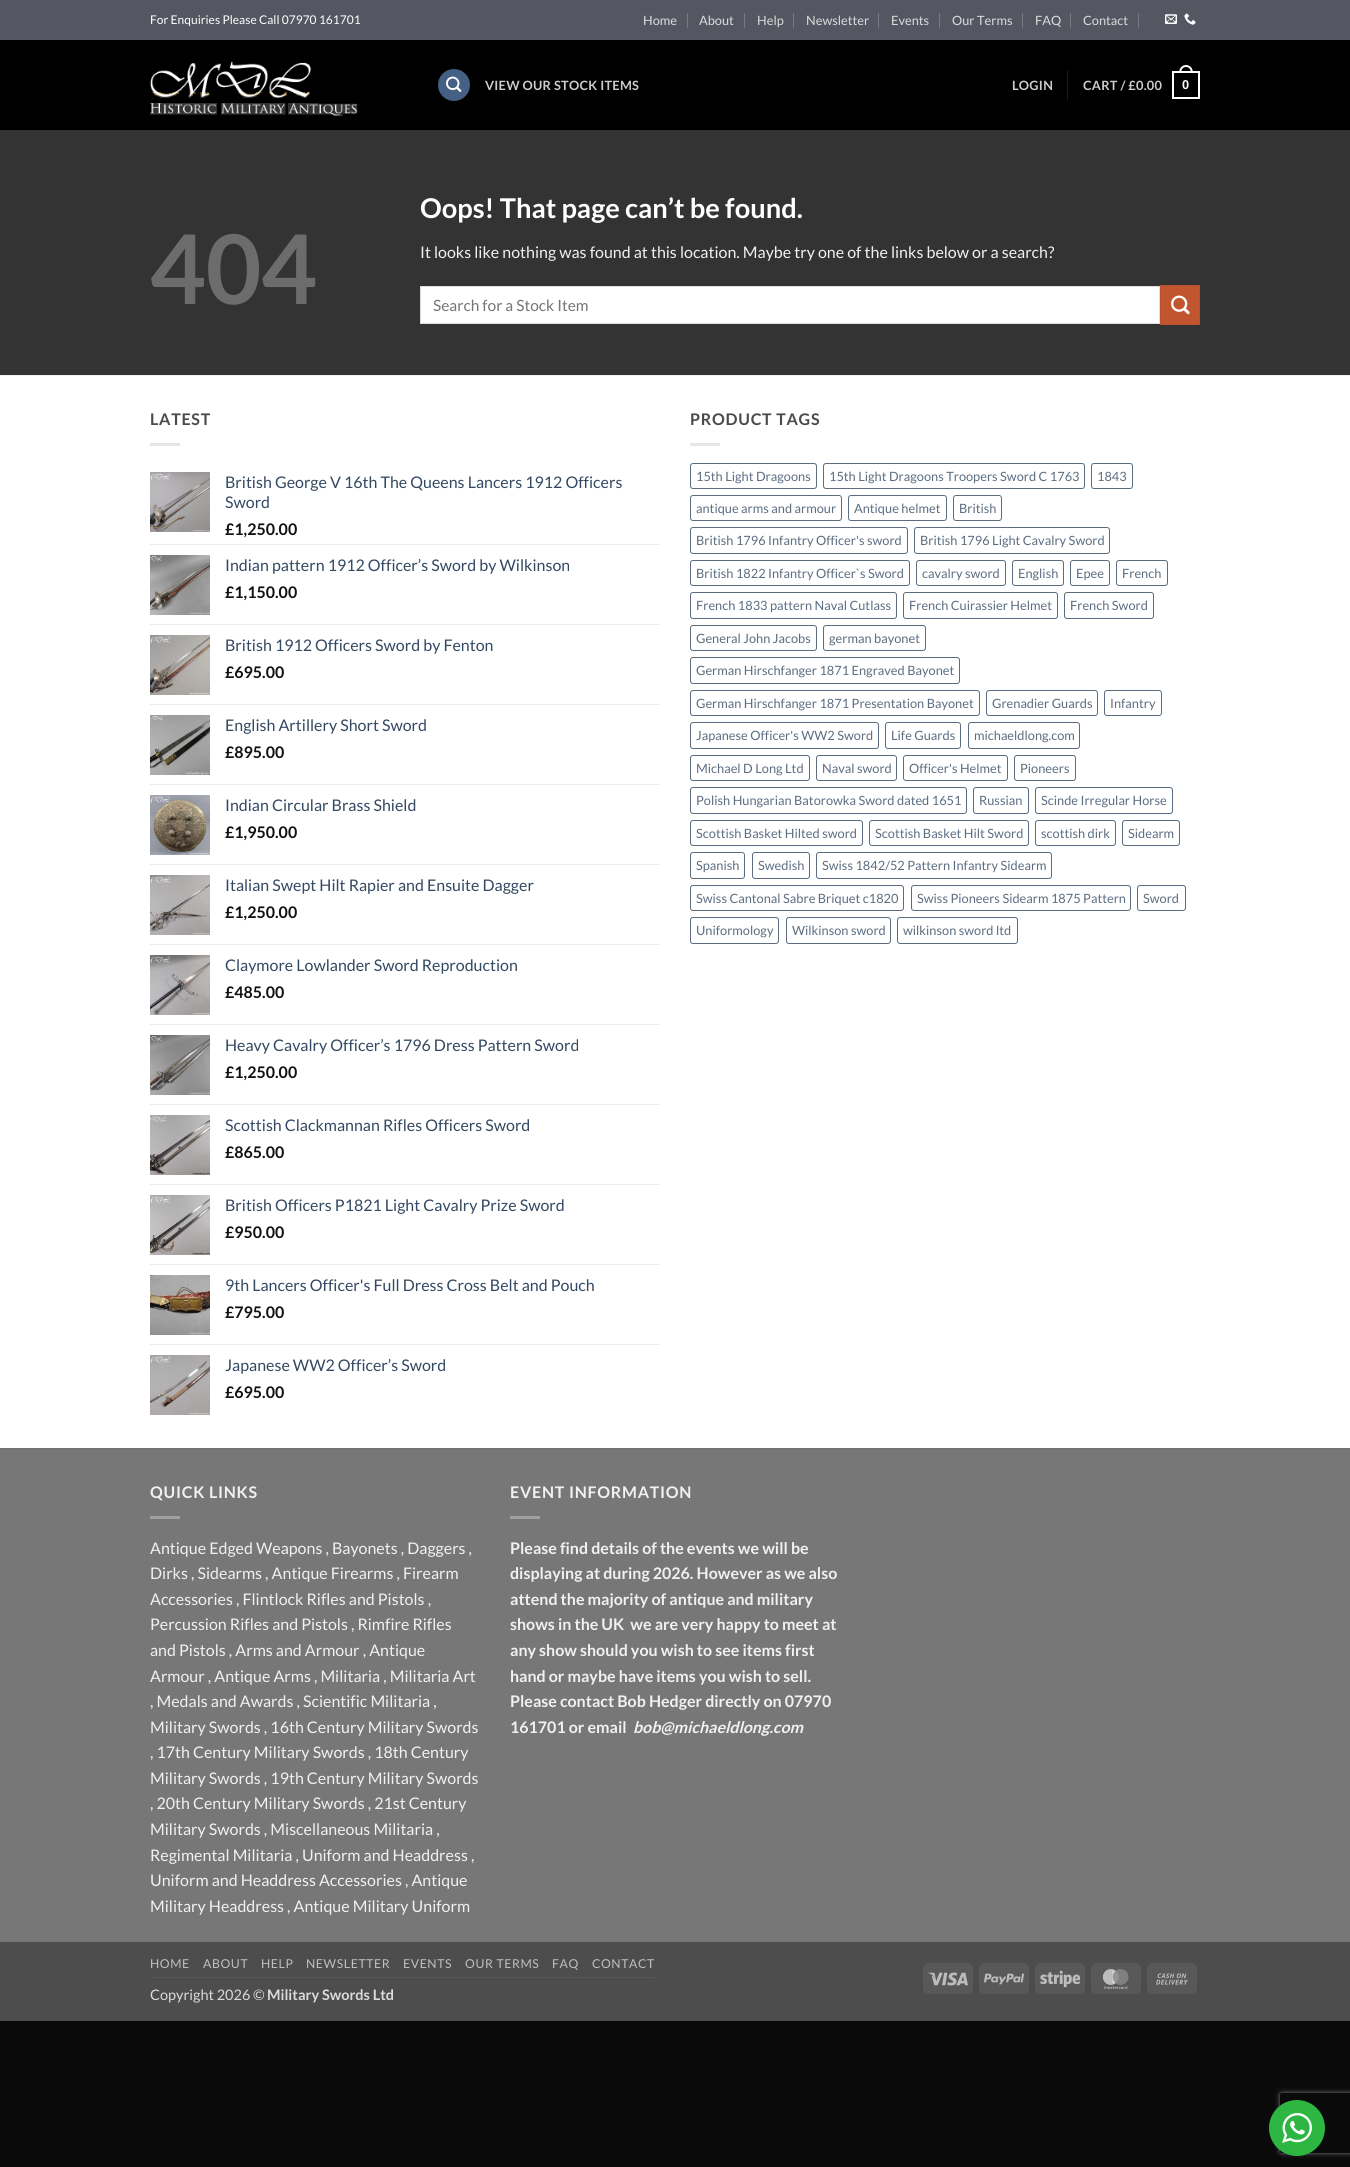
#include <cairo.h>
#include <math.h>
#include <stddef.h>


static void set_color(cairo_t *cr, unsigned color) {
    cairo_set_source_rgb(cr, (color >> 16) / 255.0, (color >> 8 & 255) / 255.0, (color & 255) / 255.0);
}

static void draw_text(cairo_t *cr, double x, double y, const char *s, const char *family, double size, int italic, int bold, unsigned color) {
    cairo_select_font_face(cr, family, italic ? CAIRO_FONT_SLANT_ITALIC : CAIRO_FONT_SLANT_NORMAL,
        bold ? CAIRO_FONT_WEIGHT_BOLD : CAIRO_FONT_WEIGHT_NORMAL);
    cairo_set_font_size(cr, size);
    set_color(cr, color);
    cairo_move_to(cr, x, y);
    cairo_show_text(cr, s);
}

static void draw_spaced(cairo_t *cr, double x, double y, const char *s, double letter, double word) {
    cairo_move_to(cr, x, y);
    while (*s) {
        char ch[5] = {0};
        int n = 0;
        do ch[n++] = *s++; while ((*s & 0xC0) == 0x80);
        cairo_show_text(cr, ch);
        cairo_rel_move_to(cr, letter + word * (*ch == ' '), 0);
    }
}

static void fill_rect(cairo_t *cr, double x, double y, double w, double h, unsigned color) {
    set_color(cr, color);
    cairo_rectangle(cr, x, y, w, h);
    cairo_fill(cr);
}

static void rounded_rect(cairo_t *cr, double x, double y, double w, double h, double r) {
    cairo_new_sub_path(cr);
    cairo_arc(cr, x + w - r, y + h - r, r, 0, M_PI / 2);
    cairo_arc(cr, x + r, y + h - r, r, M_PI / 2, M_PI);
    cairo_arc(cr, x + r, y + r, r, M_PI, 1.5 * M_PI);
    cairo_arc(cr, x + w - r, y + r, r, 1.5 * M_PI, 2 * M_PI);
    cairo_close_path(cr);
}

static void draw_shadow(cairo_t *cr, double x, double y, double w, double h, double r, double blur, double alpha) {
    cairo_push_group_with_content(cr, CAIRO_CONTENT_ALPHA);
    cairo_set_operator(cr, CAIRO_OPERATOR_SOURCE);
    for (int i = 15; i >= -15 && fmin(w, h) + blur * i / 3 > 0; i -= 2) {
        double e = blur * i / 6;
        cairo_set_source_rgba(cr, 0, 0, 0, alpha * erfc((i - 1) / 8.5) / 2);
        rounded_rect(cr, x - e, y - e, w + 2 * e, h + 2 * e, fmax(0, fmin(r + e + blur * .6, fmin(w, h) / 2 + e)));
        cairo_fill(cr);
    }
    cairo_pattern_t *soft = cairo_pop_group(cr);
    cairo_mask(cr, soft);
    cairo_pattern_destroy(soft);
}

static void draw_image(cairo_t *cr, const char *path, double x, double y, double w, double h) {
    cairo_surface_t *image = cairo_image_surface_create_from_png(path);
    cairo_save(cr);
    cairo_set_source_surface(cr, image, x, y);
    cairo_rectangle(cr, x, y, w, h);
    cairo_fill(cr);
    cairo_restore(cr);
    cairo_surface_destroy(image);
}

int main(void) {
    cairo_surface_t *surface = cairo_image_surface_create(CAIRO_FORMAT_RGB24, 1350, 2167);
    cairo_t *cr = cairo_create(surface);
    cairo_font_options_t *options = cairo_font_options_create();
    cairo_font_options_set_hint_metrics(options, CAIRO_HINT_METRICS_OFF);
    cairo_font_options_set_hint_style(options, CAIRO_HINT_STYLE_NONE);
    cairo_set_font_options(cr, options);
    cairo_set_miter_limit(cr, 4);
    set_color(cr, 0x0A0A0A);
    cairo_paint(cr);
    fill_rect(cr, 0, 376, 1350, 1072, 0xFFFFFF);
    fill_rect(cr, 0, 0, 1350, 40, 0x545762);
    draw_text(cr, 150, 24, "For Enquiries Please Call 07970 161701", "Lato", 12, 0, 0, 0xFFFFFF);
    draw_text(cr, 643, 25, "Home", "Lato", 12.8, 0, 0, 0xDBDBDB);
    fill_rect(cr, 687, 13, 1, 15, 0x767981);
    draw_text(cr, 699, 25, "About", "Lato", 12.8, 0, 0, 0xDBDBDB);
    fill_rect(cr, 744, 13, 1, 15, 0x767981);
    draw_text(cr, 757, 25, "Help", "Lato", 12.8, 0, 0, 0xDBDBDB);
    fill_rect(cr, 793, 13, 1, 15, 0x767981);
    draw_text(cr, 806, 25, "Newsletter", "Lato", 12.8, 0, 0, 0xDBDBDB);
    fill_rect(cr, 878, 13, 1, 15, 0x767981);
    draw_text(cr, 891, 25, "Events", "Lato", 12.8, 0, 0, 0xDBDBDB);
    fill_rect(cr, 939, 13, 1, 15, 0x767981);
    draw_text(cr, 952, 25, "Our Terms", "Lato", 12.8, 0, 0, 0xDBDBDB);
    fill_rect(cr, 1022, 13, 1, 15, 0x767981);
    draw_text(cr, 1035, 25, "FAQ", "Lato", 12.8, 0, 0, 0xDBDBDB);
    fill_rect(cr, 1070, 13, 1, 15, 0x767981);
    draw_text(cr, 1083, 25, "Contact", "Lato", 12.8, 0, 0, 0xDBDBDB);
    fill_rect(cr, 1138, 13, 1, 15, 0x767981);
    draw_image(cr, "assets/img1.png", 1165, 14, 12, 10);
    draw_image(cr, "assets/img2.png", 1184, 13, 12, 12);
    fill_rect(cr, 0, 40, 1350, 90, 0x000000);
    draw_image(cr, "assets/img3.png", 150, 61, 208, 56);
    set_color(cr, 0x446084);
    cairo_arc(cr, 454, 85, 16, 0, 2 * M_PI);
    cairo_fill(cr);
    cairo_rectangle(cr, 438.5, 69.5, 31, 31);
    cairo_set_source_rgba(cr, 0, 0, 0, 0.05);
    cairo_set_line_width(cr, 1);
    cairo_stroke(cr);
    draw_image(cr, "assets/img4.png", 446, 76, 16, 16);
    cairo_select_font_face(cr, "Lato", CAIRO_FONT_SLANT_NORMAL, CAIRO_FONT_WEIGHT_BOLD);
    set_color(cr, 0xCCCCCC);
    draw_spaced(cr, 485, 90, "VIEW OUR STOCK ITEMS", 0.25, 0);
    draw_spaced(cr, 1012, 90, "LOGIN", 0.25, 0);
    fill_rect(cr, 1067, 70, 1, 30, 0x1A1A1A);
    set_color(cr, 0xCCCCCC);
    draw_spaced(cr, 1083, 90, "CART / £0.00", 0.25, 0);
    cairo_rectangle(cr, 1173, 72, 26, 26);
    set_color(cr, 0xFFFFFF);
    cairo_set_line_width(cr, 2);
    cairo_stroke(cr);
    cairo_set_fill_rule(cr, CAIRO_FILL_RULE_EVEN_ODD);
    cairo_new_path(cr);
    cairo_move_to(cr, 1186, 65);
    cairo_curve_to(cr, 1190.5, 65, 1193, 69, 1193, 73);
    cairo_line_to(cr, 1179, 73);
    cairo_curve_to(cr, 1179, 69, 1181.5, 65, 1186, 65);
    cairo_close_path(cr);
    cairo_move_to(cr, 1186, 67);
    cairo_curve_to(cr, 1189.5, 67, 1191, 70, 1191, 73);
    cairo_line_to(cr, 1181, 73);
    cairo_curve_to(cr, 1181, 70, 1182.5, 67, 1186, 67);
    cairo_close_path(cr);
    cairo_fill(cr);
    cairo_select_font_face(cr, "Liberation Sans", CAIRO_FONT_SLANT_NORMAL, CAIRO_FONT_WEIGHT_BOLD);
    draw_spaced(cr, 1182, 89, "0", 0.25, 0);
    fill_rect(cr, 0, 130, 1350, 245, 0x333333);
    draw_text(cr, 150, 304, "404", "Lato", 96, 0, 1, 0x6C6C6C);
    draw_text(cr, 420, 218, "Oops! That page can’t be found.", "Lato", 27.25, 0, 1, 0xFFFFFF);
    draw_text(cr, 420, 258, "It looks like nothing was found at this location. Maybe try one of the links below or a search?", "Lato", 16, 0, 0, 0xF1F1F1);
    set_color(cr, 0xFFFFFF);
    cairo_rectangle(cr, 420.5, 286.5, 739, 37);
    cairo_fill_preserve(cr);
    set_color(cr, 0xDDDDDD);
    cairo_set_line_width(cr, 1);
    cairo_stroke(cr);
    draw_text(cr, 433, 311, "Search for a Stock Item", "Lato", 15.5, 0, 0, 0x757575);
    set_color(cr, 0xC05530);
    cairo_rectangle(cr, 1160.5, 285.5, 39, 39);
    cairo_fill_preserve(cr);
    set_color(cr, 0xB6512E);
    cairo_stroke(cr);
    draw_image(cr, "assets/img5.png", 1171, 295, 19, 20);
    fill_rect(cr, 0, 375, 1350, 1, 0xF2F2F2);
    cairo_select_font_face(cr, "Lato", CAIRO_FONT_SLANT_NORMAL, CAIRO_FONT_WEIGHT_BOLD);
    cairo_set_font_size(cr, 16);
    set_color(cr, 0x4A4A4A);
    draw_spaced(cr, 150, 425, "LATEST", 0.75, 0);
    fill_rect(cr, 150, 443, 30, 3, 0xE6E6E6);
    draw_image(cr, "assets/img6.png", 150, 472, 60, 60);
    draw_text(cr, 225, 488, "British George V 16th The Queens Lancers 1912 Officers", "Lato", 16, 0, 0, 0x334862);
    draw_text(cr, 225, 508, "Sword", "Lato", 16, 0, 0, 0x334862);
    draw_text(cr, 225, 535, "£1,250.00", "Lato", 16, 0, 1, 0x111111);
    fill_rect(cr, 150, 544, 510, 1, 0xECECEC);
    draw_image(cr, "assets/img7.png", 150, 555, 60, 60);
    draw_text(cr, 225, 571, "Indian pattern 1912 Officer’s Sword by Wilkinson", "Lato", 16, 0, 0, 0x334862);
    draw_text(cr, 225, 598, "£1,150.00", "Lato", 16, 0, 1, 0x111111);
    fill_rect(cr, 150, 624, 510, 1, 0xECECEC);
    draw_image(cr, "assets/img8.png", 150, 635, 60, 60);
    draw_text(cr, 225, 651, "British 1912 Officers Sword by Fenton", "Lato", 16, 0, 0, 0x334862);
    draw_text(cr, 225, 678, "£695.00", "Lato", 16, 0, 1, 0x111111);
    fill_rect(cr, 150, 704, 510, 1, 0xECECEC);
    draw_image(cr, "assets/img9.png", 150, 715, 60, 60);
    draw_text(cr, 225, 731, "English Artillery Short Sword", "Lato", 16, 0, 0, 0x334862);
    draw_text(cr, 225, 758, "£895.00", "Lato", 16, 0, 1, 0x111111);
    fill_rect(cr, 150, 784, 510, 1, 0xECECEC);
    draw_image(cr, "assets/img10.png", 150, 795, 60, 60);
    draw_text(cr, 225, 811, "Indian Circular Brass Shield", "Lato", 16, 0, 0, 0x334862);
    draw_text(cr, 225, 838, "£1,950.00", "Lato", 16, 0, 1, 0x111111);
    fill_rect(cr, 150, 864, 510, 1, 0xECECEC);
    draw_image(cr, "assets/img11.png", 150, 875, 60, 60);
    draw_text(cr, 225, 891, "Italian Swept Hilt Rapier and Ensuite Dagger", "Lato", 16, 0, 0, 0x334862);
    draw_text(cr, 225, 918, "£1,250.00", "Lato", 16, 0, 1, 0x111111);
    fill_rect(cr, 150, 944, 510, 1, 0xECECEC);
    draw_image(cr, "assets/img12.png", 150, 955, 60, 60);
    draw_text(cr, 225, 971, "Claymore Lowlander Sword Reproduction", "Lato", 16, 0, 0, 0x334862);
    draw_text(cr, 225, 998, "£485.00", "Lato", 16, 0, 1, 0x111111);
    fill_rect(cr, 150, 1024, 510, 1, 0xECECEC);
    draw_image(cr, "assets/img13.png", 150, 1035, 60, 60);
    draw_text(cr, 225, 1051, "Heavy Cavalry Officer’s 1796 Dress Pattern Sword", "Lato", 16, 0, 0, 0x334862);
    draw_text(cr, 225, 1078, "£1,250.00", "Lato", 16, 0, 1, 0x111111);
    fill_rect(cr, 150, 1104, 510, 1, 0xECECEC);
    draw_image(cr, "assets/img14.png", 150, 1115, 60, 60);
    draw_text(cr, 225, 1131, "Scottish Clackmannan Rifles Officers Sword", "Lato", 16, 0, 0, 0x334862);
    draw_text(cr, 225, 1158, "£865.00", "Lato", 16, 0, 1, 0x111111);
    fill_rect(cr, 150, 1184, 510, 1, 0xECECEC);
    draw_image(cr, "assets/img15.png", 150, 1195, 60, 60);
    draw_text(cr, 225, 1211, "British Officers P1821 Light Cavalry Prize Sword", "Lato", 16, 0, 0, 0x334862);
    draw_text(cr, 225, 1238, "£950.00", "Lato", 16, 0, 1, 0x111111);
    fill_rect(cr, 150, 1264, 510, 1, 0xECECEC);
    draw_image(cr, "assets/img16.png", 150, 1275, 60, 60);
    draw_text(cr, 225, 1291, "9th Lancers Officer's Full Dress Cross Belt and Pouch", "Lato", 16, 0, 0, 0x334862);
    draw_text(cr, 225, 1318, "£795.00", "Lato", 16, 0, 1, 0x111111);
    fill_rect(cr, 150, 1344, 510, 1, 0xECECEC);
    draw_image(cr, "assets/img17.png", 150, 1355, 60, 60);
    draw_text(cr, 225, 1371, "Japanese WW2 Officer’s Sword", "Lato", 16, 0, 0, 0x334862);
    draw_text(cr, 225, 1398, "£695.00", "Lato", 16, 0, 1, 0x111111);
    set_color(cr, 0x4A4A4A);
    draw_spaced(cr, 690, 425, "PRODUCT TAGS", 0.75, 0);
    fill_rect(cr, 690, 443, 30, 3, 0xE6E6E6);
    rounded_rect(cr, 690.5, 463.5, 126, 25, 2.5);
    set_color(cr, 0x5C6D81);
    cairo_stroke(cr);
    draw_text(cr, 696, 481, "15th Light Dragoons", "Lato", 12.8, 0, 0, 0x5C6D81);
    rounded_rect(cr, 823.5, 463.5, 261, 25, 2.5);
    cairo_stroke(cr);
    draw_text(cr, 829, 481, "15th Light Dragoons Troopers Sword C 1763", "Lato", 12.8, 0, 0, 0x5C6D81);
    rounded_rect(cr, 1091.5, 463.5, 41, 25, 2.5);
    cairo_stroke(cr);
    draw_text(cr, 1097, 481, "1843", "Lato", 12.8, 0, 0, 0x5C6D81);
    rounded_rect(cr, 690.5, 495.5, 151, 25, 2.5);
    cairo_stroke(cr);
    draw_text(cr, 696, 513, "antique arms and armour", "Lato", 12.8, 0, 0, 0x5C6D81);
    rounded_rect(cr, 848.5, 495.5, 98, 25, 2.5);
    cairo_stroke(cr);
    draw_text(cr, 854, 513, "Antique helmet", "Lato", 12.8, 0, 0, 0x5C6D81);
    rounded_rect(cr, 953.5, 495.5, 48, 25, 2.5);
    cairo_stroke(cr);
    draw_text(cr, 959, 513, "British", "Lato", 12.8, 0, 0, 0x5C6D81);
    rounded_rect(cr, 690.5, 527.5, 217, 26, 2.5);
    cairo_stroke(cr);
    draw_text(cr, 696, 545, "British 1796 Infantry Officer's sword", "Lato", 12.8, 0, 0, 0x5C6D81);
    rounded_rect(cr, 914.5, 527.5, 195, 26, 2.5);
    cairo_stroke(cr);
    draw_text(cr, 920, 545, "British 1796 Light Cavalry Sword", "Lato", 12.8, 0, 0, 0x5C6D81);
    rounded_rect(cr, 690.5, 560.5, 219, 25, 2.5);
    cairo_stroke(cr);
    draw_text(cr, 696, 578, "British 1822 Infantry Officer`s Sword", "Lato", 12.8, 0, 0, 0x5C6D81);
    rounded_rect(cr, 916.5, 560.5, 89, 25, 2.5);
    cairo_stroke(cr);
    draw_text(cr, 922, 578, "cavalry sword", "Lato", 12.8, 0, 0, 0x5C6D81);
    rounded_rect(cr, 1012.5, 560.5, 51, 25, 2.5);
    cairo_stroke(cr);
    draw_text(cr, 1018, 578, "English", "Lato", 12.8, 0, 0, 0x5C6D81);
    rounded_rect(cr, 1070.5, 560.5, 39, 25, 2.5);
    cairo_stroke(cr);
    draw_text(cr, 1076, 578, "Epee", "Lato", 12.8, 0, 0, 0x5C6D81);
    rounded_rect(cr, 1116.5, 560.5, 51, 25, 2.5);
    cairo_stroke(cr);
    draw_text(cr, 1122, 578, "French", "Lato", 12.8, 0, 0, 0x5C6D81);
    rounded_rect(cr, 690.5, 592.5, 206, 26, 2.5);
    cairo_stroke(cr);
    draw_text(cr, 696, 610, "French 1833 pattern Naval Cutlass", "Lato", 12.8, 0, 0, 0x5C6D81);
    rounded_rect(cr, 903.5, 592.5, 154, 26, 2.5);
    cairo_stroke(cr);
    draw_text(cr, 909, 610, "French Cuirassier Helmet", "Lato", 12.8, 0, 0, 0x5C6D81);
    rounded_rect(cr, 1064.5, 592.5, 89, 26, 2.5);
    cairo_stroke(cr);
    draw_text(cr, 1070, 610, "French Sword", "Lato", 12.8, 0, 0, 0x5C6D81);
    rounded_rect(cr, 690.5, 625.5, 126, 25, 2.5);
    cairo_stroke(cr);
    draw_text(cr, 696, 643, "General John Jacobs", "Lato", 12.8, 0, 0, 0x5C6D81);
    rounded_rect(cr, 823.5, 625.5, 102, 25, 2.5);
    cairo_stroke(cr);
    draw_text(cr, 829, 643, "german bayonet", "Lato", 12.8, 0, 0, 0x5C6D81);
    rounded_rect(cr, 690.5, 657.5, 269, 26, 2.5);
    cairo_stroke(cr);
    draw_text(cr, 696, 675, "German Hirschfanger 1871 Engraved Bayonet", "Lato", 12.8, 0, 0, 0x5C6D81);
    rounded_rect(cr, 690.5, 690.5, 289, 25, 2.5);
    cairo_stroke(cr);
    draw_text(cr, 696, 708, "German Hirschfanger 1871 Presentation Bayonet", "Lato", 12.8, 0, 0, 0x5C6D81);
    rounded_rect(cr, 986.5, 690.5, 111, 25, 2.5);
    cairo_stroke(cr);
    draw_text(cr, 992, 708, "Grenadier Guards", "Lato", 12.8, 0, 0, 0x5C6D81);
    rounded_rect(cr, 1104.5, 690.5, 57, 25, 2.5);
    cairo_stroke(cr);
    draw_text(cr, 1110, 708, "Infantry", "Lato", 12.8, 0, 0, 0x5C6D81);
    rounded_rect(cr, 690.5, 722.5, 188, 26, 2.5);
    cairo_stroke(cr);
    draw_text(cr, 696, 740, "Japanese Officer's WW2 Sword", "Lato", 12.8, 0, 0, 0x5C6D81);
    rounded_rect(cr, 885.5, 722.5, 75, 26, 2.5);
    cairo_stroke(cr);
    draw_text(cr, 891, 740, "Life Guards", "Lato", 12.8, 0, 0, 0x5C6D81);
    rounded_rect(cr, 968.5, 722.5, 111, 26, 2.5);
    cairo_stroke(cr);
    draw_text(cr, 974, 740, "michaeldlong.com", "Lato", 12.8, 0, 0, 0x5C6D81);
    rounded_rect(cr, 690.5, 755.5, 119, 25, 2.5);
    cairo_stroke(cr);
    draw_text(cr, 696, 773, "Michael D Long Ltd", "Lato", 12.8, 0, 0, 0x5C6D81);
    rounded_rect(cr, 816.5, 755.5, 80, 25, 2.5);
    cairo_stroke(cr);
    draw_text(cr, 822, 773, "Naval sword", "Lato", 12.8, 0, 0, 0x5C6D81);
    rounded_rect(cr, 903.5, 755.5, 104, 25, 2.5);
    cairo_stroke(cr);
    draw_text(cr, 909, 773, "Officer's Helmet", "Lato", 12.8, 0, 0, 0x5C6D81);
    rounded_rect(cr, 1014.5, 755.5, 61, 25, 2.5);
    cairo_stroke(cr);
    draw_text(cr, 1020, 773, "Pioneers", "Lato", 12.8, 0, 0, 0x5C6D81);
    rounded_rect(cr, 690.5, 787.5, 276, 26, 2.5);
    cairo_stroke(cr);
    draw_text(cr, 696, 805, "Polish Hungarian Batorowka Sword dated 1651", "Lato", 12.8, 0, 0, 0x5C6D81);
    rounded_rect(cr, 973.5, 787.5, 55, 26, 2.5);
    cairo_stroke(cr);
    draw_text(cr, 979, 805, "Russian", "Lato", 12.8, 0, 0, 0x5C6D81);
    rounded_rect(cr, 1035.5, 787.5, 137, 26, 2.5);
    cairo_stroke(cr);
    draw_text(cr, 1041, 805, "Scinde Irregular Horse", "Lato", 12.8, 0, 0, 0x5C6D81);
    rounded_rect(cr, 690.5, 820.5, 172, 25, 2.5);
    cairo_stroke(cr);
    draw_text(cr, 696, 838, "Scottish Basket Hilted sword", "Lato", 12.8, 0, 0, 0x5C6D81);
    rounded_rect(cr, 869.5, 820.5, 159, 25, 2.5);
    cairo_stroke(cr);
    draw_text(cr, 875, 838, "Scottish Basket Hilt Sword", "Lato", 12.8, 0, 0, 0x5C6D81);
    rounded_rect(cr, 1035.5, 820.5, 80, 25, 2.5);
    cairo_stroke(cr);
    draw_text(cr, 1041, 838, "scottish dirk", "Lato", 12.8, 0, 0, 0x5C6D81);
    rounded_rect(cr, 1122.5, 820.5, 57, 25, 2.5);
    cairo_stroke(cr);
    draw_text(cr, 1128, 838, "Sidearm", "Lato", 12.8, 0, 0, 0x5C6D81);
    rounded_rect(cr, 690.5, 852.5, 54, 26, 2.5);
    cairo_stroke(cr);
    draw_text(cr, 696, 870, "Spanish", "Lato", 12.8, 0, 0, 0x5C6D81);
    rounded_rect(cr, 752.5, 852.5, 57, 26, 2.5);
    cairo_stroke(cr);
    draw_text(cr, 758, 870, "Swedish", "Lato", 12.8, 0, 0, 0x5C6D81);
    rounded_rect(cr, 816.5, 852.5, 235, 26, 2.5);
    cairo_stroke(cr);
    draw_text(cr, 822, 870, "Swiss 1842/52 Pattern Infantry Sidearm", "Lato", 12.8, 0, 0, 0x5C6D81);
    rounded_rect(cr, 690.5, 885.5, 213, 25, 2.5);
    cairo_stroke(cr);
    draw_text(cr, 696, 903, "Swiss Cantonal Sabre Briquet c1820", "Lato", 12.8, 0, 0, 0x5C6D81);
    rounded_rect(cr, 911.5, 885.5, 219, 25, 2.5);
    cairo_stroke(cr);
    draw_text(cr, 917, 903, "Swiss Pioneers Sidearm 1875 Pattern", "Lato", 12.8, 0, 0, 0x5C6D81);
    rounded_rect(cr, 1137.5, 885.5, 48, 25, 2.5);
    cairo_stroke(cr);
    draw_text(cr, 1143, 903, "Sword", "Lato", 12.8, 0, 0, 0x5C6D81);
    rounded_rect(cr, 690.5, 917.5, 88, 26, 2.5);
    cairo_stroke(cr);
    draw_text(cr, 696, 935, "Uniformology", "Lato", 12.8, 0, 0, 0x5C6D81);
    rounded_rect(cr, 786.5, 917.5, 104, 26, 2.5);
    cairo_stroke(cr);
    draw_text(cr, 792, 935, "Wilkinson sword", "Lato", 12.8, 0, 0, 0x5C6D81);
    rounded_rect(cr, 897.5, 917.5, 120, 26, 2.5);
    cairo_stroke(cr);
    draw_text(cr, 903, 935, "wilkinson sword ltd", "Lato", 12.8, 0, 0, 0x5C6D81);
    fill_rect(cr, 0, 1449, 1350, 493, 0x777777);
    fill_rect(cr, 0, 1448, 1350, 1, 0x717171);
    cairo_select_font_face(cr, "Lato", CAIRO_FONT_SLANT_NORMAL, CAIRO_FONT_WEIGHT_BOLD);
    cairo_set_font_size(cr, 16);
    set_color(cr, 0xF1F1F1);
    draw_spaced(cr, 150, 1498, "QUICK LINKS", 0.75, 0);
    fill_rect(cr, 150, 1516, 30, 3, 0xA0A0A0);
    draw_text(cr, 150, 1554, "Antique Edged Weapons , Bayonets , Daggers ,", "Lato", 16, 0, 0, 0xF1F1F1);
    draw_text(cr, 150, 1579, "Dirks , Sidearms , Antique Firearms , Firearm", "Lato", 16, 0, 0, 0xF1F1F1);
    draw_text(cr, 150, 1605, "Accessories , Flintlock Rifles and Pistols ,", "Lato", 16, 0, 0, 0xF1F1F1);
    draw_text(cr, 150, 1630, "Percussion Rifles and Pistols , Rimfire Rifles", "Lato", 16, 0, 0, 0xF1F1F1);
    draw_text(cr, 150, 1656, "and Pistols , Arms and Armour , Antique", "Lato", 16, 0, 0, 0xF1F1F1);
    draw_text(cr, 150, 1682, "Armour , Antique Arms , Militaria , Militaria Art", "Lato", 16, 0, 0, 0xF1F1F1);
    draw_text(cr, 150, 1707, ", Medals and Awards , Scientific Militaria ,", "Lato", 16, 0, 0, 0xF1F1F1);
    draw_text(cr, 150, 1733, "Military Swords , 16th Century Military Swords", "Lato", 16, 0, 0, 0xF1F1F1);
    draw_text(cr, 150, 1758, ", 17th Century Military Swords , 18th Century", "Lato", 16, 0, 0, 0xF1F1F1);
    draw_text(cr, 150, 1784, "Military Swords , 19th Century Military Swords", "Lato", 16, 0, 0, 0xF1F1F1);
    draw_text(cr, 150, 1809, ", 20th Century Military Swords , 21st Century", "Lato", 16, 0, 0, 0xF1F1F1);
    draw_text(cr, 150, 1835, "Military Swords , Miscellaneous Militaria ,", "Lato", 16, 0, 0, 0xF1F1F1);
    draw_text(cr, 150, 1861, "Regimental Militaria , Uniform and Headdress ,", "Lato", 16, 0, 0, 0xF1F1F1);
    draw_text(cr, 150, 1886, "Uniform and Headdress Accessories , Antique", "Lato", 16, 0, 0, 0xF1F1F1);
    draw_text(cr, 150, 1912, "Military Headdress , Antique Military Uniform", "Lato", 16, 0, 0, 0xF1F1F1);
    cairo_select_font_face(cr, "Lato", CAIRO_FONT_SLANT_NORMAL, CAIRO_FONT_WEIGHT_BOLD);
    draw_spaced(cr, 510, 1498, "EVENT INFORMATION", 0.75, 0);
    fill_rect(cr, 510, 1516, 30, 3, 0xA0A0A0);
    draw_text(cr, 510, 1554, "Please find details of the events we will be", "Lato", 16, 0, 1, 0xF1F1F1);
    draw_text(cr, 510, 1579, "displaying at during 2026. However as we also", "Lato", 16, 0, 1, 0xF1F1F1);
    draw_text(cr, 510, 1605, "attend the majority of antique and military", "Lato", 16, 0, 1, 0xF1F1F1);
    draw_text(cr, 510, 1630, "shows in the UK  we are very happy to meet at", "Lato", 16, 0, 1, 0xF1F1F1);
    draw_text(cr, 510, 1656, "any show should you wish to see items first", "Lato", 16, 0, 1, 0xF1F1F1);
    draw_text(cr, 510, 1682, "hand or maybe have items you wish to sell.", "Lato", 16, 0, 1, 0xF1F1F1);
    draw_text(cr, 510, 1707, "Please contact Bob Hedger directly on 07970", "Lato", 16, 0, 1, 0xF1F1F1);
    draw_text(cr, 510, 1733, "161701 or email", "Lato", 16, 0, 1, 0xF1F1F1);
    draw_text(cr, 633, 1733, "bob@michaeldlong.com", "Lato", 16, 1, 1, 0xF1F1F1);
    fill_rect(cr, 0, 1942, 1350, 79, 0x4D4D4D);
    fill_rect(cr, 150, 1977, 504, 1, 0x585858);
    cairo_select_font_face(cr, "Lato", CAIRO_FONT_SLANT_NORMAL, CAIRO_FONT_WEIGHT_NORMAL);
    cairo_set_font_size(cr, 12.25);
    set_color(cr, 0xBFBFBF);
    draw_spaced(cr, 150, 1968, "HOME", 0.6, 0);
    draw_spaced(cr, 203, 1968, "ABOUT", 0.6, 0);
    draw_spaced(cr, 261, 1968, "HELP", 0.6, 0);
    draw_spaced(cr, 306, 1968, "NEWSLETTER", 0.6, 0);
    draw_spaced(cr, 403, 1968, "EVENTS", 0.6, 0);
    draw_spaced(cr, 465, 1968, "OUR TERMS", 0.6, 0);
    draw_spaced(cr, 552, 1968, "FAQ", 0.6, 0);
    draw_spaced(cr, 592, 1968, "CONTACT", 0.6, 0);
    draw_text(cr, 150, 2000, "Copyright 2026 ©", "Lato", 14.5, 0, 0, 0xDBDBDB);
    draw_text(cr, 267, 2000, "Military Swords Ltd", "Lato", 14.5, 0, 1, 0xDBDBDB);
    set_color(cr, 0x585858);
    rounded_rect(cr, 923, 1963, 50, 31, 5);
    cairo_fill(cr);
    draw_image(cr, "assets/img18.png", 928, 1972, 40, 14);
    rounded_rect(cr, 979, 1963, 50, 31, 5);
    cairo_fill(cr);
    draw_image(cr, "assets/img19.png", 984, 1973, 40, 12);
    rounded_rect(cr, 1035, 1963, 50, 31, 5);
    cairo_fill(cr);
    draw_image(cr, "assets/img20.png", 1040, 1970, 40, 18);
    rounded_rect(cr, 1091, 1963, 50, 31, 5);
    cairo_fill(cr);
    draw_image(cr, "assets/img21.png", 1102, 1969, 27, 20);
    rounded_rect(cr, 1147, 1963, 50, 31, 5);
    cairo_fill(cr);
    draw_image(cr, "assets/img22.png", 1156, 1973, 32, 12);
    cairo_save(cr);
    cairo_new_path(cr);
    cairo_move_to(cr, 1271, 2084);
    cairo_line_to(cr, 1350, 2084);
    cairo_line_to(cr, 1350, 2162);
    cairo_line_to(cr, 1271, 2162);
    cairo_close_path(cr);
    cairo_move_to(cr, 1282, 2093);
    cairo_line_to(cr, 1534, 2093);
    cairo_curve_to(cr, 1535, 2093, 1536, 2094, 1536, 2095);
    cairo_line_to(cr, 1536, 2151);
    cairo_curve_to(cr, 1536, 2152, 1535, 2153, 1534, 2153);
    cairo_line_to(cr, 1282, 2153);
    cairo_curve_to(cr, 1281, 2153, 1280, 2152, 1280, 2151);
    cairo_line_to(cr, 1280, 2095);
    cairo_curve_to(cr, 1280, 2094, 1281, 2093, 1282, 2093);
    cairo_close_path(cr);
    cairo_clip(cr);
    set_color(cr, 0x808080);
    draw_shadow(cr, 1280, 2093, 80, 60, 2, 2.5, 1);
    cairo_restore(cr);
    set_color(cr, 0x2DB742);
    cairo_arc(cr, 1297, 2128, 28, 0, 2 * M_PI);
    cairo_fill(cr);
    draw_image(cr, "assets/img23.png", 1282, 2113, 30, 30);
    cairo_surface_write_to_png(surface, "output.png");
    cairo_font_options_destroy(options);
    cairo_destroy(cr);
    cairo_surface_destroy(surface);
    return 0;
}
